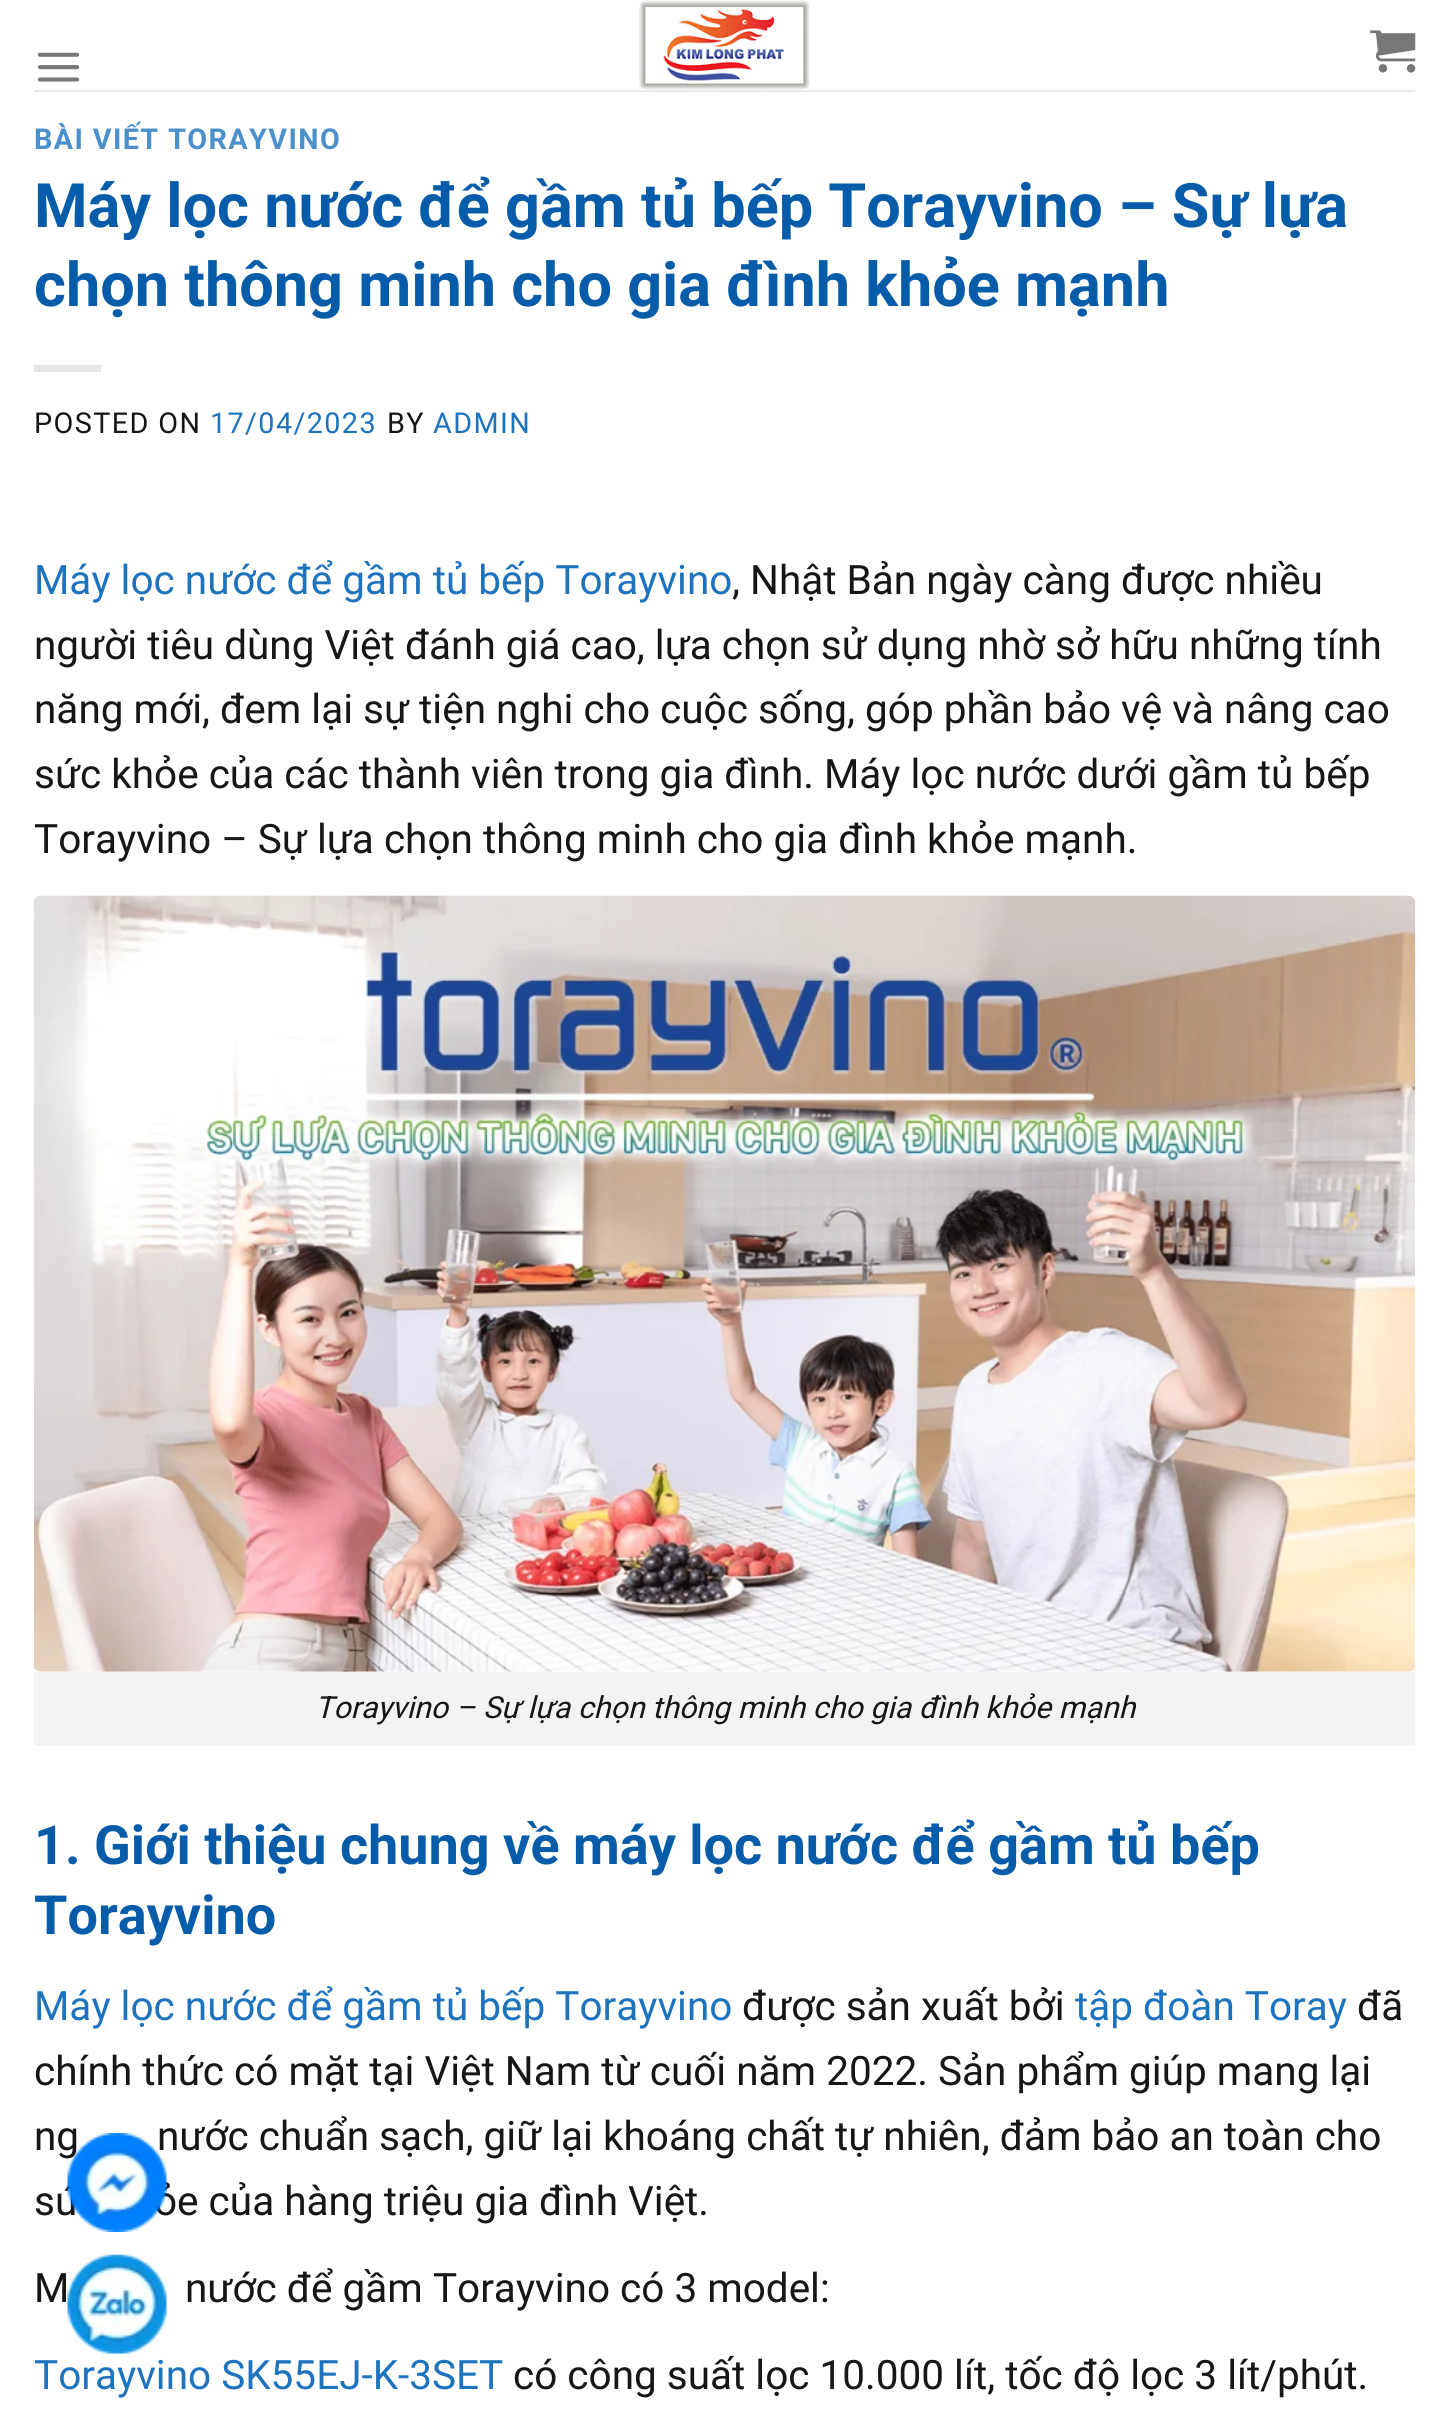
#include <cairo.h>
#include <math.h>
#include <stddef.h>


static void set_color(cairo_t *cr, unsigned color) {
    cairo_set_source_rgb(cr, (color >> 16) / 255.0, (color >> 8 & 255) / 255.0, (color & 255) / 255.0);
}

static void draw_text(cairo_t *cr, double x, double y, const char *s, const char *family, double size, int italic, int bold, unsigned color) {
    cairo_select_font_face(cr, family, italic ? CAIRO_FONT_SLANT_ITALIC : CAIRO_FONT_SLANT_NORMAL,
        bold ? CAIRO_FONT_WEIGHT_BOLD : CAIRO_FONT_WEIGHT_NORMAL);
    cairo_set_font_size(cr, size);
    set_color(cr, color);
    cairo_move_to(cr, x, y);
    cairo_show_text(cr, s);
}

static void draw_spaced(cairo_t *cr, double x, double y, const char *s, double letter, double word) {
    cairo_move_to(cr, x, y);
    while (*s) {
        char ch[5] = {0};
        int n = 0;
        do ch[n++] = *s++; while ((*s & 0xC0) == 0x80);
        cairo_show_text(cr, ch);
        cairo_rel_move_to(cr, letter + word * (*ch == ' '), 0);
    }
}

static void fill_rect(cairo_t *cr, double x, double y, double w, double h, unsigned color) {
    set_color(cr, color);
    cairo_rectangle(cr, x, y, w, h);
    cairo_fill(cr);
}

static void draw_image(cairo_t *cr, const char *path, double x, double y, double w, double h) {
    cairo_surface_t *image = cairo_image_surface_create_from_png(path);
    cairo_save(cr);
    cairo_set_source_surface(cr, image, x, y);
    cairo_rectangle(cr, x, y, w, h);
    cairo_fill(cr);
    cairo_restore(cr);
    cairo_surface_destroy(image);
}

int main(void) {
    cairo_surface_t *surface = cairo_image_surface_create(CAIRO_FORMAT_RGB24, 1447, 2424);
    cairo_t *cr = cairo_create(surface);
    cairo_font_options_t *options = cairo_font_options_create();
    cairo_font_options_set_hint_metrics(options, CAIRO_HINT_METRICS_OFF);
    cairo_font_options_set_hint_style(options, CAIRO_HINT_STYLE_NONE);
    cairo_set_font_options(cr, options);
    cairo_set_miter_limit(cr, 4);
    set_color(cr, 0xFFFFFF);
    cairo_paint(cr);
    draw_image(cr, "assets/img1.png", 37, 52, 43, 30);
    draw_image(cr, "assets/img2.png", 639, 0, 171, 90);
    draw_image(cr, "assets/img3.png", 1370, 30, 46, 43);
    fill_rect(cr, 34, 90, 1381, 2, 0xE8E8E8);
    cairo_select_font_face(cr, "Roboto", CAIRO_FONT_SLANT_NORMAL, CAIRO_FONT_WEIGHT_BOLD);
    cairo_set_font_size(cr, 28.75);
    set_color(cr, 0x4B8FCB);
    draw_spaced(cr, 34, 149, "BÀI VIẾT TORAYVINO", 1.4, 0);
    draw_text(cr, 34, 227, "Máy lọc nước để gầm tủ bếp Torayvino – Sự lựa", "Roboto", 61.2, 0, 1, 0x065CA9);
    draw_text(cr, 34, 306, "chọn thông minh cho gia đình khỏe mạnh", "Roboto", 61.2, 0, 1, 0x065CA9);
    fill_rect(cr, 34, 365, 67, 7, 0xE6E6E6);
    cairo_select_font_face(cr, "Roboto", CAIRO_FONT_SLANT_NORMAL, CAIRO_FONT_WEIGHT_NORMAL);
    cairo_set_font_size(cr, 28.75);
    set_color(cr, 0x161617);
    draw_spaced(cr, 34, 433, "POSTED ON", 1.4, 0);
    set_color(cr, 0x1E73BE);
    draw_spaced(cr, 210, 433, "17/04/2023", 1.4, 0);
    set_color(cr, 0x161617);
    draw_spaced(cr, 387, 433, "BY", 1.4, 0);
    set_color(cr, 0x1E73BE);
    draw_spaced(cr, 433, 433, "ADMIN", 1.4, 0);
    draw_text(cr, 34, 594, "Máy lọc nước để gầm tủ bếp Torayvino", "Roboto", 40.5, 0, 0, 0x1E73BE);
    draw_text(cr, 732, 594, ", Nhật Bản ngày càng được nhiều", "Roboto", 40.5, 0, 0, 0x161617);
    draw_text(cr, 34, 659, "người tiêu dùng Việt đánh giá cao, lựa chọn sử dụng nhờ sở hữu những tính", "Roboto", 40.5, 0, 0, 0x161617);
    draw_text(cr, 34, 723, "năng mới, đem lại sự tiện nghi cho cuộc sống, góp phần bảo vệ và nâng cao", "Roboto", 40.5, 0, 0, 0x161617);
    draw_text(cr, 34, 788, "sức khỏe của các thành viên trong gia đình. Máy lọc nước dưới gầm tủ bếp", "Roboto", 40.5, 0, 0, 0x161617);
    draw_text(cr, 34, 853, "Torayvino – Sự lựa chọn thông minh cho gia đình khỏe mạnh.", "Roboto", 40.5, 0, 0, 0x161617);
    draw_image(cr, "assets/img4.png", 33, 895, 1383, 777);
    fill_rect(cr, 34, 1672, 1381, 74, 0xF3F3F3);
    draw_text(cr, 315, 1718, "Torayvino – Sự lựa chọn thông minh cho gia đình khỏe mạnh", "Roboto", 30.4, 1, 0, 0x161617);
    draw_text(cr, 34, 1864, "1. Giới thiệu chung về máy lọc nước để gầm tủ bếp", "Roboto", 54, 0, 1, 0x065CA9);
    draw_text(cr, 34, 1934, "Torayvino", "Roboto", 54, 0, 1, 0x065CA9);
    draw_text(cr, 34, 2020, "Máy lọc nước để gầm tủ bếp Torayvino", "Roboto", 40.5, 0, 0, 0x1E73BE);
    draw_text(cr, 742, 2020, "được sản xuất bởi", "Roboto", 40.5, 0, 0, 0x161617);
    draw_text(cr, 1075, 2020, "tập đoàn Toray", "Roboto", 40.5, 0, 0, 0x1E73BE);
    draw_text(cr, 1357, 2020, "đã", "Roboto", 40.5, 0, 0, 0x161617);
    draw_text(cr, 34, 2085, "chính thức có mặt tại Việt Nam từ cuối năm 2022. Sản phẩm giúp mang lại", "Roboto", 40.5, 0, 0, 0x161617);
    draw_text(cr, 34, 2150, "ng", "Roboto", 40.5, 0, 0, 0x161617);
    draw_text(cr, 157, 2150, "nước chuẩn sạch, giữ lại khoáng chất tự nhiên, đảm bảo an toàn cho", "Roboto", 40.5, 0, 0, 0x161617);
    draw_text(cr, 34, 2215, "sứ", "Roboto", 40.5, 0, 0, 0x161617);
    draw_text(cr, 154, 2215, "ỏe của hàng triệu gia đình Việt.", "Roboto", 40.5, 0, 0, 0x161617);
    draw_text(cr, 34, 2302, "M", "Roboto", 40.5, 0, 0, 0x161617);
    draw_text(cr, 185, 2302, "nước để gầm Torayvino có 3 model:", "Roboto", 40.5, 0, 0, 0x161617);
    draw_text(cr, 34, 2389, "Torayvino SK55EJ-K-3SET", "Roboto", 40.5, 0, 0, 0x1E73BE);
    draw_text(cr, 513, 2389, "có công suất lọc 10.000 lít, tốc độ lọc 3 lít/phút.", "Roboto", 40.5, 0, 0, 0x161617);
    draw_image(cr, "assets/img5.png", 67, 2133, 100, 99);
    draw_image(cr, "assets/img6.png", 67, 2254, 100, 100);
    cairo_surface_write_to_png(surface, "output.png");
    cairo_font_options_destroy(options);
    cairo_destroy(cr);
    cairo_surface_destroy(surface);
    return 0;
}
